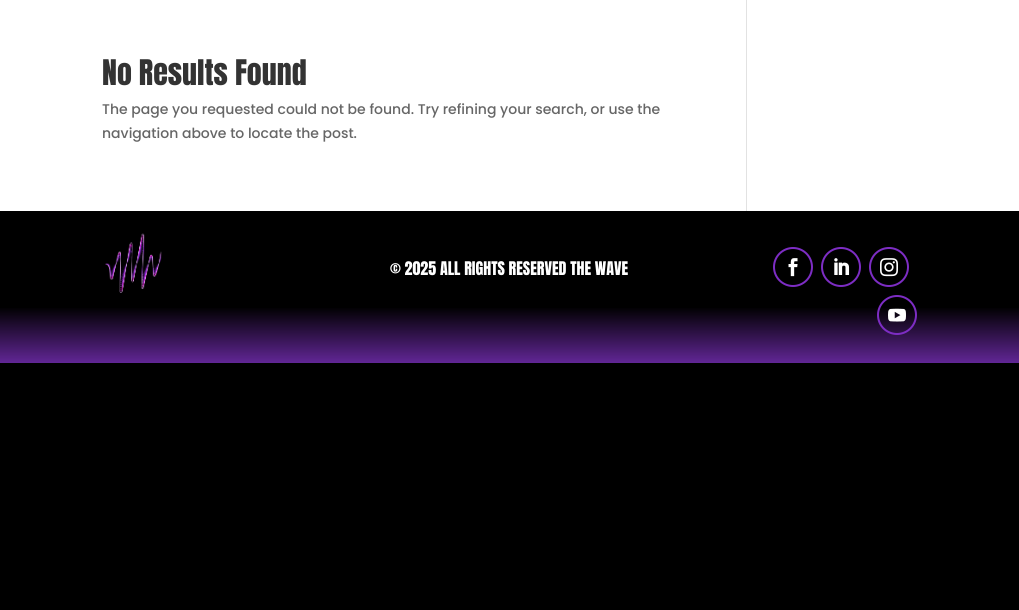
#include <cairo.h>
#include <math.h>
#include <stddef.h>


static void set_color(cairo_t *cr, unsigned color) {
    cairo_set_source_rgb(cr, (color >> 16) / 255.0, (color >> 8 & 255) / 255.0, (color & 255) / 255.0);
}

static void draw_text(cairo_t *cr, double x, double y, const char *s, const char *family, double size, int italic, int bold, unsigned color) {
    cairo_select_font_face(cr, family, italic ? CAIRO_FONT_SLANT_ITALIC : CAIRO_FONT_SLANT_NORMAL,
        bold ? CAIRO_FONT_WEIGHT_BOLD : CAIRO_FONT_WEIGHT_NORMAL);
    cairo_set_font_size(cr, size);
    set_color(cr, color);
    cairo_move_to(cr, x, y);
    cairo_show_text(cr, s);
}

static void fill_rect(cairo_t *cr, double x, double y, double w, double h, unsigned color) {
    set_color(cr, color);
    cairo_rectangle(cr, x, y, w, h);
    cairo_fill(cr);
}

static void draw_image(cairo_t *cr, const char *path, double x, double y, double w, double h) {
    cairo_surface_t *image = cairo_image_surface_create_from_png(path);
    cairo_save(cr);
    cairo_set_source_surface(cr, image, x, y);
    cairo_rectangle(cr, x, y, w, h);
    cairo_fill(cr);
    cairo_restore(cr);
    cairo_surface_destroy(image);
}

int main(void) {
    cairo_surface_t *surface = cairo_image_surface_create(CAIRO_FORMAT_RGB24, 1019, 610);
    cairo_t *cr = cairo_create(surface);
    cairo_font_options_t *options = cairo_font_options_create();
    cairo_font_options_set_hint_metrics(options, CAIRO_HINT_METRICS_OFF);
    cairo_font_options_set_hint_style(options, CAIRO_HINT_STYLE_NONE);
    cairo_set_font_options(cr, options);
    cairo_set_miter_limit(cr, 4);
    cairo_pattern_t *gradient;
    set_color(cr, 0x000000);
    cairo_paint(cr);
    fill_rect(cr, 0, 0, 1019, 211, 0xFFFFFF);
    draw_text(cr, 102, 85, "No Results Found", "Anton", 30, 0, 0, 0x333333);
    draw_text(cr, 102, 114, "The page you requested could not be found. Try refining your search, or use the", "Poppins Medium", 14, 0, 0, 0x666666);
    draw_text(cr, 102, 138, "navigation above to locate the post.", "Poppins Medium", 14, 0, 0, 0x666666);
    fill_rect(cr, 746, 0, 1, 211, 0xE2E2E2);
    gradient = cairo_pattern_create_linear(510, 211, 510, 363);
    cairo_pattern_add_color_stop_rgba(gradient, 0.63, 0, 0, 0, 1);
    cairo_pattern_add_color_stop_rgba(gradient, 1, 0.38, 0.149, 0.584, 1);
    cairo_set_source(cr, gradient);
    cairo_pattern_destroy(gradient);
    cairo_rectangle(cr, 0, 308, 1019, 55);
    cairo_fill(cr);
    draw_image(cr, "assets/img1.png", 105, 233, 57, 60);
    draw_text(cr, 390, 275, "© 2025 ALL RIGHTS RESERVED THE WAVE", "Anton", 16, 0, 0, 0xFFFFFF);
    cairo_new_path(cr);
    cairo_arc(cr, 793, 267, 19, 0, 2 * M_PI);
    set_color(cr, 0x7D2DC4);
    cairo_stroke(cr);
    draw_image(cr, "assets/img2.png", 788, 258, 10, 19);
    cairo_arc(cr, 841, 267, 19, 0, 2 * M_PI);
    cairo_stroke(cr);
    draw_image(cr, "assets/img3.png", 834, 258, 16, 17);
    cairo_arc(cr, 889, 267, 19, 0, 2 * M_PI);
    cairo_stroke(cr);
    draw_image(cr, "assets/img4.png", 880, 258, 18, 19);
    cairo_arc(cr, 897, 315, 19, 0, 2 * M_PI);
    cairo_stroke(cr);
    draw_image(cr, "assets/img5.png", 888, 308, 18, 14);
    cairo_surface_write_to_png(surface, "output.png");
    cairo_font_options_destroy(options);
    cairo_destroy(cr);
    cairo_surface_destroy(surface);
    return 0;
}
